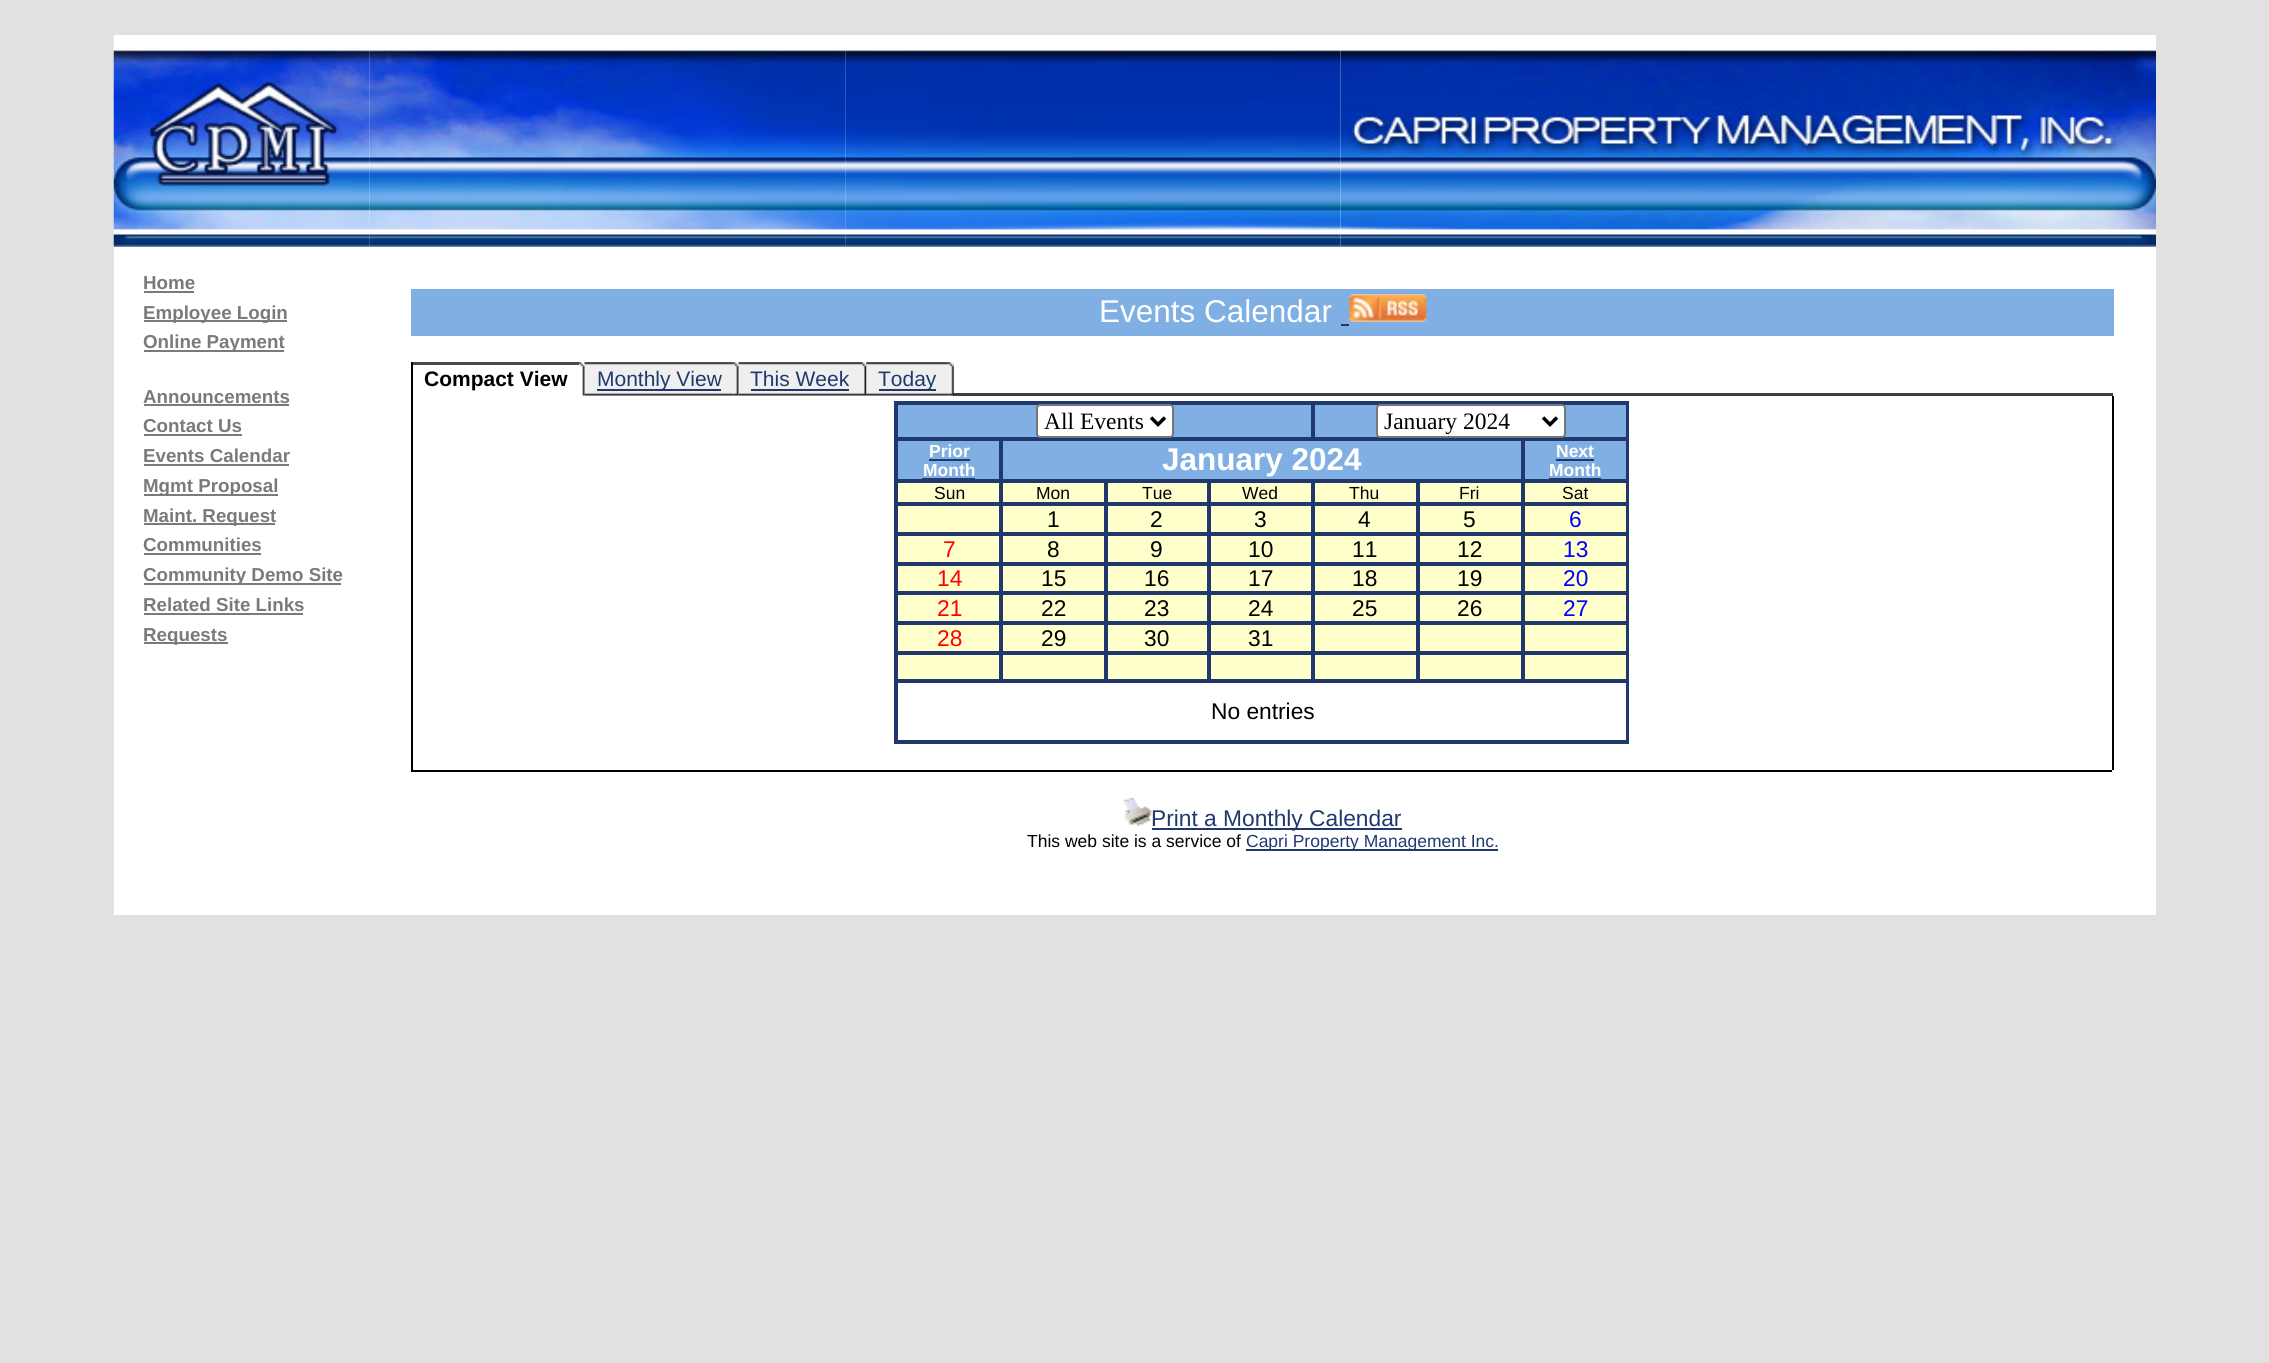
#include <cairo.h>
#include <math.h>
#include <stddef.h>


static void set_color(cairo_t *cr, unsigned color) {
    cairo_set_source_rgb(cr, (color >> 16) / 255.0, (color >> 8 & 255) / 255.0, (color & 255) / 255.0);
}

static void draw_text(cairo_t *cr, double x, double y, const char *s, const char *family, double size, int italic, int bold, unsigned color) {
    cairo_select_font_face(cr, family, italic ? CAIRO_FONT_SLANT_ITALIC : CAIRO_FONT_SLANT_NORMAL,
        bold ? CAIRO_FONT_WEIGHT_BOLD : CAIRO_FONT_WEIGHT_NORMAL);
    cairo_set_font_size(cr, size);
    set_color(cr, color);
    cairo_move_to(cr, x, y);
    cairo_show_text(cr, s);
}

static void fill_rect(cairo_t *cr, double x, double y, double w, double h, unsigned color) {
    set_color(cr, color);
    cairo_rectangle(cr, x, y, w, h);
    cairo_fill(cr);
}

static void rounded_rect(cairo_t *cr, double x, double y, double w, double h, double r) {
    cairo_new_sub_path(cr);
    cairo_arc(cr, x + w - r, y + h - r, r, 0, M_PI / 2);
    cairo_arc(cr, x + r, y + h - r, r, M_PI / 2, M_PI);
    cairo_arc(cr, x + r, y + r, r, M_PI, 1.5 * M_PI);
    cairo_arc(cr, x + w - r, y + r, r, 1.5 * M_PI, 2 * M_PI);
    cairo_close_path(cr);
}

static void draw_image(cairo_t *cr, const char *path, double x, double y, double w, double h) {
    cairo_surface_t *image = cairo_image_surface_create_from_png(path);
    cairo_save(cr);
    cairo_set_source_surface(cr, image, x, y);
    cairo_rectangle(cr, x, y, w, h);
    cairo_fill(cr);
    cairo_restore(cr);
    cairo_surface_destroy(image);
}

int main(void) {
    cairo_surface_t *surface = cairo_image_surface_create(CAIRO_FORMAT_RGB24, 2269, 1363);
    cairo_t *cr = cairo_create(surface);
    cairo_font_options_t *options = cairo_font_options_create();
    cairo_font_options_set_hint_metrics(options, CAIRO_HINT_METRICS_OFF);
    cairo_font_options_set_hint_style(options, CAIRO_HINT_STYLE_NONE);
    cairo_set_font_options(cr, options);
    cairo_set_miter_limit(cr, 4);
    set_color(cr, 0xE1E1E1);
    cairo_paint(cr);
    fill_rect(cr, 114, 35, 2042, 880, 0xFFFFFF);
    fill_rect(cr, 953, 393, 1160, 3, 0x3D3D3D);
    draw_image(cr, "assets/img1.png", 113, 35, 257, 212);
    draw_text(cr, 143, 289, "Home", "Liberation Sans", 18.75, 0, 1, 0x7A7A7A);
    fill_rect(cr, 144, 291, 50, 2, 0x7A7A7A);
    fill_rect(cr, 144, 320, 143, 2, 0x7A7A7A);
    draw_text(cr, 143, 319, "Employee Login", "Liberation Sans", 18.75, 0, 1, 0x7A7A7A);
    fill_rect(cr, 144, 350, 140, 2, 0x7A7A7A);
    draw_text(cr, 143, 348, "Online Payment", "Liberation Sans", 18.75, 0, 1, 0x7A7A7A);
    draw_text(cr, 143, 403, "Announcements", "Liberation Sans", 18.75, 0, 1, 0x7A7A7A);
    fill_rect(cr, 144, 404, 145, 2, 0x7A7A7A);
    draw_text(cr, 143, 432, "Contact Us", "Liberation Sans", 18.75, 0, 1, 0x7A7A7A);
    fill_rect(cr, 144, 434, 98, 2, 0x7A7A7A);
    draw_text(cr, 143, 462, "Events Calendar", "Liberation Sans", 18.75, 0, 1, 0x7A7A7A);
    fill_rect(cr, 144, 464, 145, 2, 0x7A7A7A);
    fill_rect(cr, 144, 494, 134, 2, 0x7A7A7A);
    draw_text(cr, 143, 492, "Mgmt Proposal", "Liberation Sans", 18.75, 0, 1, 0x7A7A7A);
    fill_rect(cr, 144, 523, 131, 2, 0x7A7A7A);
    draw_text(cr, 143, 522, "Maint. Request", "Liberation Sans", 18.75, 0, 1, 0x7A7A7A);
    draw_text(cr, 143, 551, "Communities", "Liberation Sans", 18.75, 0, 1, 0x7A7A7A);
    fill_rect(cr, 144, 553, 117, 2, 0x7A7A7A);
    fill_rect(cr, 144, 583, 197, 2, 0x7A7A7A);
    draw_text(cr, 143, 581, "Community Demo Site", "Liberation Sans", 18.75, 0, 1, 0x7A7A7A);
    draw_text(cr, 143, 611, "Related Site Links", "Liberation Sans", 18.75, 0, 1, 0x7A7A7A);
    fill_rect(cr, 144, 613, 159, 2, 0x7A7A7A);
    fill_rect(cr, 144, 642, 84, 2, 0x7A7A7A);
    draw_text(cr, 143, 641, "Requests", "Liberation Sans", 18.75, 0, 1, 0x7A7A7A);
    draw_image(cr, "assets/img2.png", 369, 49, 477, 198);
    draw_image(cr, "assets/img3.png", 845, 50, 496, 197);
    draw_image(cr, "assets/img4.png", 1340, 50, 816, 197);
    fill_rect(cr, 411, 289, 1703, 47, 0x80AFE3);
    draw_text(cr, 1099, 322, "Events Calendar", "Liberation Sans", 31.5, 0, 0, 0xFFFFFF);
    fill_rect(cr, 1341, 324, 8, 2, 0x21386F);
    draw_image(cr, "assets/img5.png", 1349, 294, 78, 28);
    fill_rect(cr, 411, 362, 2, 408, 0x000000);
    fill_rect(cr, 413, 362, 167, 3, 0x4A4A4A);
    draw_text(cr, 424, 386, "Compact View", "Liberation Sans", 21, 0, 1, 0x000000);
    fill_rect(cr, 579, 362, 1, 3, 0xFFFFFF);
    fill_rect(cr, 585, 362, 153, 34, 0xEFEFEF);
    draw_image(cr, "assets/img7.png", 584, 362, 149, 34);
    draw_image(cr, "assets/img6.png", 579, 362, 6, 34);
    fill_rect(cr, 597, 389, 124, 2, 0x21386F);
    draw_text(cr, 597, 386, "Monthly View", "Liberation Sans", 21, 0, 0, 0x21386F);
    fill_rect(cr, 739, 362, 215, 34, 0xEFEFEF);
    draw_image(cr, "assets/img9.png", 738, 362, 123, 34);
    draw_image(cr, "assets/img8.png", 733, 362, 6, 34);
    draw_text(cr, 750, 386, "This Week", "Liberation Sans", 21, 0, 0, 0x21386F);
    fill_rect(cr, 751, 389, 98, 2, 0x21386F);
    draw_image(cr, "assets/img11.png", 866, 362, 83, 34);
    draw_image(cr, "assets/img10.png", 861, 362, 6, 34);
    fill_rect(cr, 879, 389, 57, 2, 0x21386F);
    draw_text(cr, 878, 386, "Today", "Liberation Sans", 21, 0, 0, 0x21386F);
    fill_rect(cr, 953, 393, 1, 3, 0x3B3B3B);
    draw_image(cr, "assets/img12.png", 948, 362, 6, 34);
    cairo_rectangle(cr, 895, 402, 733, 341);
    set_color(cr, 0x21386F);
    cairo_stroke(cr);
    set_color(cr, 0x80AFE3);
    cairo_rectangle(cr, 897, 404, 415, 34);
    cairo_fill_preserve(cr);
    set_color(cr, 0x21386F);
    cairo_stroke(cr);
    set_color(cr, 0xFFFFFF);
    rounded_rect(cr, 1037, 405, 136, 32, 3);
    cairo_fill_preserve(cr);
    set_color(cr, 0x767676);
    cairo_stroke(cr);
    cairo_new_path(cr);
    cairo_move_to(cr, 1151, 417.5);
    cairo_line_to(cr, 1158, 424.5);
    cairo_line_to(cr, 1165, 417.5);
    set_color(cr, 0x000000);
    cairo_set_line_width(cr, 3.5);
    cairo_stroke(cr);
    draw_text(cr, 1044, 429, "All Events", "Liberation Serif", 23.5, 0, 0, 0x000000);
    set_color(cr, 0x80AFE3);
    cairo_rectangle(cr, 1314, 404, 313, 34);
    cairo_fill_preserve(cr);
    set_color(cr, 0x21386F);
    cairo_set_line_width(cr, 2);
    cairo_stroke(cr);
    set_color(cr, 0xFFFFFF);
    rounded_rect(cr, 1377, 405, 188, 32, 3);
    cairo_fill_preserve(cr);
    set_color(cr, 0x767676);
    cairo_stroke(cr);
    cairo_new_path(cr);
    cairo_move_to(cr, 1543, 417.5);
    cairo_line_to(cr, 1550, 424.5);
    cairo_line_to(cr, 1557, 417.5);
    set_color(cr, 0x000000);
    cairo_set_line_width(cr, 3.5);
    cairo_stroke(cr);
    draw_text(cr, 1384, 429, "January 2024", "Liberation Serif", 23.5, 0, 0, 0x000000);
    set_color(cr, 0x80AFE3);
    cairo_rectangle(cr, 897, 440, 103, 40);
    cairo_fill_preserve(cr);
    set_color(cr, 0x21386F);
    cairo_set_line_width(cr, 2);
    cairo_stroke(cr);
    draw_text(cr, 929, 457, "Prior", "Liberation Sans", 17.5, 0, 1, 0xFFFFFF);
    fill_rect(cr, 929, 459, 41, 2, 0x21386F);
    draw_text(cr, 923, 476, "Month", "Liberation Sans", 17.5, 0, 1, 0xFFFFFF);
    fill_rect(cr, 922, 478, 53, 1, 0x21386F);
    set_color(cr, 0x80AFE3);
    cairo_rectangle(cr, 1002, 440, 520, 40);
    cairo_fill_preserve(cr);
    set_color(cr, 0x21386F);
    cairo_stroke(cr);
    draw_text(cr, 1162, 470, "January 2024", "Liberation Sans", 31.5, 0, 1, 0xFFFFFF);
    set_color(cr, 0x80AFE3);
    cairo_rectangle(cr, 1524, 440, 103, 40);
    cairo_fill_preserve(cr);
    set_color(cr, 0x21386F);
    cairo_stroke(cr);
    draw_text(cr, 1556, 457, "Next", "Liberation Sans", 17.5, 0, 1, 0xFFFFFF);
    fill_rect(cr, 1556, 459, 38, 2, 0x21386F);
    draw_text(cr, 1549, 476, "Month", "Liberation Sans", 17.5, 0, 1, 0xFFFFFF);
    fill_rect(cr, 1549, 478, 52, 1, 0x21386F);
    set_color(cr, 0xFFFFCC);
    cairo_rectangle(cr, 897, 482, 103, 21);
    cairo_fill_preserve(cr);
    set_color(cr, 0x21386F);
    cairo_stroke(cr);
    draw_text(cr, 934, 499, "Sun", "Liberation Sans", 17.5, 0, 0, 0x000000);
    set_color(cr, 0xFFFFCC);
    cairo_rectangle(cr, 1002, 482, 103, 21);
    cairo_fill_preserve(cr);
    set_color(cr, 0x21386F);
    cairo_stroke(cr);
    draw_text(cr, 1036, 499, "Mon", "Liberation Sans", 17.5, 0, 0, 0x000000);
    set_color(cr, 0xFFFFCC);
    cairo_rectangle(cr, 1107, 482, 101, 21);
    cairo_fill_preserve(cr);
    set_color(cr, 0x21386F);
    cairo_stroke(cr);
    draw_text(cr, 1142, 499, "Tue", "Liberation Sans", 17.5, 0, 0, 0x000000);
    set_color(cr, 0xFFFFCC);
    cairo_rectangle(cr, 1210, 482, 102, 21);
    cairo_fill_preserve(cr);
    set_color(cr, 0x21386F);
    cairo_stroke(cr);
    draw_text(cr, 1242, 499, "Wed", "Liberation Sans", 17.5, 0, 0, 0x000000);
    set_color(cr, 0xFFFFCC);
    cairo_rectangle(cr, 1314, 482, 103, 21);
    cairo_fill_preserve(cr);
    set_color(cr, 0x21386F);
    cairo_stroke(cr);
    draw_text(cr, 1349, 499, "Thu", "Liberation Sans", 17.5, 0, 0, 0x000000);
    set_color(cr, 0xFFFFCC);
    cairo_rectangle(cr, 1419, 482, 103, 21);
    cairo_fill_preserve(cr);
    set_color(cr, 0x21386F);
    cairo_stroke(cr);
    draw_text(cr, 1459, 499, "Fri", "Liberation Sans", 17.5, 0, 0, 0x000000);
    set_color(cr, 0xFFFFCC);
    cairo_rectangle(cr, 1524, 482, 103, 21);
    cairo_fill_preserve(cr);
    set_color(cr, 0x21386F);
    cairo_stroke(cr);
    draw_text(cr, 1562, 499, "Sat", "Liberation Sans", 17.5, 0, 0, 0x000000);
    set_color(cr, 0xFFFFCC);
    cairo_rectangle(cr, 897, 505, 103, 28);
    cairo_fill_preserve(cr);
    set_color(cr, 0x21386F);
    cairo_stroke(cr);
    set_color(cr, 0xFFFFCC);
    cairo_rectangle(cr, 1002, 505, 103, 28);
    cairo_fill_preserve(cr);
    set_color(cr, 0x21386F);
    cairo_stroke(cr);
    draw_text(cr, 1047, 527, "1", "Liberation Sans", 22.75, 0, 0, 0x000000);
    set_color(cr, 0xFFFFCC);
    cairo_rectangle(cr, 1107, 505, 101, 28);
    cairo_fill_preserve(cr);
    set_color(cr, 0x21386F);
    cairo_stroke(cr);
    draw_text(cr, 1150, 527, "2", "Liberation Sans", 22.75, 0, 0, 0x000000);
    set_color(cr, 0xFFFFCC);
    cairo_rectangle(cr, 1210, 505, 102, 28);
    cairo_fill_preserve(cr);
    set_color(cr, 0x21386F);
    cairo_stroke(cr);
    draw_text(cr, 1254, 527, "3", "Liberation Sans", 22.75, 0, 0, 0x000000);
    set_color(cr, 0xFFFFCC);
    cairo_rectangle(cr, 1314, 505, 103, 28);
    cairo_fill_preserve(cr);
    set_color(cr, 0x21386F);
    cairo_stroke(cr);
    draw_text(cr, 1358, 527, "4", "Liberation Sans", 22.75, 0, 0, 0x000000);
    set_color(cr, 0xFFFFCC);
    cairo_rectangle(cr, 1419, 505, 103, 28);
    cairo_fill_preserve(cr);
    set_color(cr, 0x21386F);
    cairo_stroke(cr);
    draw_text(cr, 1463, 527, "5", "Liberation Sans", 22.75, 0, 0, 0x000000);
    set_color(cr, 0xFFFFCC);
    cairo_rectangle(cr, 1524, 505, 103, 28);
    cairo_fill_preserve(cr);
    set_color(cr, 0x21386F);
    cairo_stroke(cr);
    draw_text(cr, 1569, 527, "6", "Liberation Sans", 22.75, 0, 0, 0x0000FF);
    set_color(cr, 0xFFFFCC);
    cairo_rectangle(cr, 897, 535, 103, 28);
    cairo_fill_preserve(cr);
    set_color(cr, 0x21386F);
    cairo_stroke(cr);
    draw_text(cr, 943, 557, "7", "Liberation Sans", 22.75, 0, 0, 0xFF0000);
    set_color(cr, 0xFFFFCC);
    cairo_rectangle(cr, 1002, 535, 103, 28);
    cairo_fill_preserve(cr);
    set_color(cr, 0x21386F);
    cairo_stroke(cr);
    draw_text(cr, 1047, 557, "8", "Liberation Sans", 22.75, 0, 0, 0x000000);
    set_color(cr, 0xFFFFCC);
    cairo_rectangle(cr, 1107, 535, 101, 28);
    cairo_fill_preserve(cr);
    set_color(cr, 0x21386F);
    cairo_stroke(cr);
    draw_text(cr, 1150, 557, "9", "Liberation Sans", 22.75, 0, 0, 0x000000);
    set_color(cr, 0xFFFFCC);
    cairo_rectangle(cr, 1210, 535, 102, 28);
    cairo_fill_preserve(cr);
    set_color(cr, 0x21386F);
    cairo_stroke(cr);
    draw_text(cr, 1248, 557, "10", "Liberation Sans", 22.75, 0, 0, 0x000000);
    set_color(cr, 0xFFFFCC);
    cairo_rectangle(cr, 1314, 535, 103, 28);
    cairo_fill_preserve(cr);
    set_color(cr, 0x21386F);
    cairo_stroke(cr);
    draw_text(cr, 1352, 557, "11", "Liberation Sans", 22.75, 0, 0, 0x000000);
    set_color(cr, 0xFFFFCC);
    cairo_rectangle(cr, 1419, 535, 103, 28);
    cairo_fill_preserve(cr);
    set_color(cr, 0x21386F);
    cairo_stroke(cr);
    draw_text(cr, 1457, 557, "12", "Liberation Sans", 22.75, 0, 0, 0x000000);
    set_color(cr, 0xFFFFCC);
    cairo_rectangle(cr, 1524, 535, 103, 28);
    cairo_fill_preserve(cr);
    set_color(cr, 0x21386F);
    cairo_stroke(cr);
    draw_text(cr, 1563, 557, "13", "Liberation Sans", 22.75, 0, 0, 0x0000FF);
    set_color(cr, 0xFFFFCC);
    cairo_rectangle(cr, 897, 565, 103, 27);
    cairo_fill_preserve(cr);
    set_color(cr, 0x21386F);
    cairo_stroke(cr);
    draw_text(cr, 937, 586, "14", "Liberation Sans", 22.75, 0, 0, 0xFF0000);
    set_color(cr, 0xFFFFCC);
    cairo_rectangle(cr, 1002, 565, 103, 27);
    cairo_fill_preserve(cr);
    set_color(cr, 0x21386F);
    cairo_stroke(cr);
    draw_text(cr, 1041, 586, "15", "Liberation Sans", 22.75, 0, 0, 0x000000);
    set_color(cr, 0xFFFFCC);
    cairo_rectangle(cr, 1107, 565, 101, 27);
    cairo_fill_preserve(cr);
    set_color(cr, 0x21386F);
    cairo_stroke(cr);
    draw_text(cr, 1144, 586, "16", "Liberation Sans", 22.75, 0, 0, 0x000000);
    set_color(cr, 0xFFFFCC);
    cairo_rectangle(cr, 1210, 565, 102, 27);
    cairo_fill_preserve(cr);
    set_color(cr, 0x21386F);
    cairo_stroke(cr);
    draw_text(cr, 1248, 586, "17", "Liberation Sans", 22.75, 0, 0, 0x000000);
    set_color(cr, 0xFFFFCC);
    cairo_rectangle(cr, 1314, 565, 103, 27);
    cairo_fill_preserve(cr);
    set_color(cr, 0x21386F);
    cairo_stroke(cr);
    draw_text(cr, 1352, 586, "18", "Liberation Sans", 22.75, 0, 0, 0x000000);
    set_color(cr, 0xFFFFCC);
    cairo_rectangle(cr, 1419, 565, 103, 27);
    cairo_fill_preserve(cr);
    set_color(cr, 0x21386F);
    cairo_stroke(cr);
    draw_text(cr, 1457, 586, "19", "Liberation Sans", 22.75, 0, 0, 0x000000);
    set_color(cr, 0xFFFFCC);
    cairo_rectangle(cr, 1524, 565, 103, 27);
    cairo_fill_preserve(cr);
    set_color(cr, 0x21386F);
    cairo_stroke(cr);
    draw_text(cr, 1563, 586, "20", "Liberation Sans", 22.75, 0, 0, 0x0000FF);
    set_color(cr, 0xFFFFCC);
    cairo_rectangle(cr, 897, 594, 103, 28);
    cairo_fill_preserve(cr);
    set_color(cr, 0x21386F);
    cairo_stroke(cr);
    draw_text(cr, 937, 616, "21", "Liberation Sans", 22.75, 0, 0, 0xFF0000);
    set_color(cr, 0xFFFFCC);
    cairo_rectangle(cr, 1002, 594, 103, 28);
    cairo_fill_preserve(cr);
    set_color(cr, 0x21386F);
    cairo_stroke(cr);
    draw_text(cr, 1041, 616, "22", "Liberation Sans", 22.75, 0, 0, 0x000000);
    set_color(cr, 0xFFFFCC);
    cairo_rectangle(cr, 1107, 594, 101, 28);
    cairo_fill_preserve(cr);
    set_color(cr, 0x21386F);
    cairo_stroke(cr);
    draw_text(cr, 1144, 616, "23", "Liberation Sans", 22.75, 0, 0, 0x000000);
    set_color(cr, 0xFFFFCC);
    cairo_rectangle(cr, 1210, 594, 102, 28);
    cairo_fill_preserve(cr);
    set_color(cr, 0x21386F);
    cairo_stroke(cr);
    draw_text(cr, 1248, 616, "24", "Liberation Sans", 22.75, 0, 0, 0x000000);
    set_color(cr, 0xFFFFCC);
    cairo_rectangle(cr, 1314, 594, 103, 28);
    cairo_fill_preserve(cr);
    set_color(cr, 0x21386F);
    cairo_stroke(cr);
    draw_text(cr, 1352, 616, "25", "Liberation Sans", 22.75, 0, 0, 0x000000);
    set_color(cr, 0xFFFFCC);
    cairo_rectangle(cr, 1419, 594, 103, 28);
    cairo_fill_preserve(cr);
    set_color(cr, 0x21386F);
    cairo_stroke(cr);
    draw_text(cr, 1457, 616, "26", "Liberation Sans", 22.75, 0, 0, 0x000000);
    set_color(cr, 0xFFFFCC);
    cairo_rectangle(cr, 1524, 594, 103, 28);
    cairo_fill_preserve(cr);
    set_color(cr, 0x21386F);
    cairo_stroke(cr);
    draw_text(cr, 1563, 616, "27", "Liberation Sans", 22.75, 0, 0, 0x0000FF);
    set_color(cr, 0xFFFFCC);
    cairo_rectangle(cr, 897, 624, 103, 28);
    cairo_fill_preserve(cr);
    set_color(cr, 0x21386F);
    cairo_stroke(cr);
    draw_text(cr, 937, 646, "28", "Liberation Sans", 22.75, 0, 0, 0xFF0000);
    set_color(cr, 0xFFFFCC);
    cairo_rectangle(cr, 1002, 624, 103, 28);
    cairo_fill_preserve(cr);
    set_color(cr, 0x21386F);
    cairo_stroke(cr);
    draw_text(cr, 1041, 646, "29", "Liberation Sans", 22.75, 0, 0, 0x000000);
    set_color(cr, 0xFFFFCC);
    cairo_rectangle(cr, 1107, 624, 101, 28);
    cairo_fill_preserve(cr);
    set_color(cr, 0x21386F);
    cairo_stroke(cr);
    draw_text(cr, 1144, 646, "30", "Liberation Sans", 22.75, 0, 0, 0x000000);
    set_color(cr, 0xFFFFCC);
    cairo_rectangle(cr, 1210, 624, 102, 28);
    cairo_fill_preserve(cr);
    set_color(cr, 0x21386F);
    cairo_stroke(cr);
    draw_text(cr, 1248, 646, "31", "Liberation Sans", 22.75, 0, 0, 0x000000);
    set_color(cr, 0xFFFFCC);
    cairo_rectangle(cr, 1314, 624, 103, 28);
    cairo_fill_preserve(cr);
    set_color(cr, 0x21386F);
    cairo_stroke(cr);
    set_color(cr, 0xFFFFCC);
    cairo_rectangle(cr, 1419, 624, 103, 28);
    cairo_fill_preserve(cr);
    set_color(cr, 0x21386F);
    cairo_stroke(cr);
    set_color(cr, 0xFFFFCC);
    cairo_rectangle(cr, 1524, 624, 103, 28);
    cairo_fill_preserve(cr);
    set_color(cr, 0x21386F);
    cairo_stroke(cr);
    set_color(cr, 0xFFFFCC);
    cairo_rectangle(cr, 897, 654, 103, 26);
    cairo_fill_preserve(cr);
    set_color(cr, 0x21386F);
    cairo_stroke(cr);
    set_color(cr, 0xFFFFCC);
    cairo_rectangle(cr, 1002, 654, 103, 26);
    cairo_fill_preserve(cr);
    set_color(cr, 0x21386F);
    cairo_stroke(cr);
    set_color(cr, 0xFFFFCC);
    cairo_rectangle(cr, 1107, 654, 101, 26);
    cairo_fill_preserve(cr);
    set_color(cr, 0x21386F);
    cairo_stroke(cr);
    set_color(cr, 0xFFFFCC);
    cairo_rectangle(cr, 1210, 654, 102, 26);
    cairo_fill_preserve(cr);
    set_color(cr, 0x21386F);
    cairo_stroke(cr);
    set_color(cr, 0xFFFFCC);
    cairo_rectangle(cr, 1314, 654, 103, 26);
    cairo_fill_preserve(cr);
    set_color(cr, 0x21386F);
    cairo_stroke(cr);
    set_color(cr, 0xFFFFCC);
    cairo_rectangle(cr, 1419, 654, 103, 26);
    cairo_fill_preserve(cr);
    set_color(cr, 0x21386F);
    cairo_stroke(cr);
    set_color(cr, 0xFFFFCC);
    cairo_rectangle(cr, 1524, 654, 103, 26);
    cairo_fill_preserve(cr);
    set_color(cr, 0x21386F);
    cairo_stroke(cr);
    cairo_rectangle(cr, 897, 682, 730, 59);
    cairo_stroke(cr);
    draw_text(cr, 1211, 719, "No entries", "Liberation Sans", 22.75, 0, 0, 0x000000);
    fill_rect(cr, 2112, 396, 2, 374, 0x000000);
    fill_rect(cr, 411, 770, 1701, 2, 0x000000);
    draw_image(cr, "assets/img13.png", 1123, 798, 29, 28);
    fill_rect(cr, 1152, 828, 250, 2, 0x21386F);
    draw_text(cr, 1151, 826, "Print a Monthly Calendar", "Liberation Sans", 22.75, 0, 0, 0x21386F);
    draw_text(cr, 1027, 847, "This web site is a service of", "Liberation Sans", 17.5, 0, 0, 0x000000);
    fill_rect(cr, 1246, 849, 252, 2, 0x21386F);
    draw_text(cr, 1246, 847, "Capri Property Management Inc.", "Liberation Sans", 17.5, 0, 0, 0x21386F);
    cairo_surface_write_to_png(surface, "output.png");
    cairo_font_options_destroy(options);
    cairo_destroy(cr);
    cairo_surface_destroy(surface);
    return 0;
}
